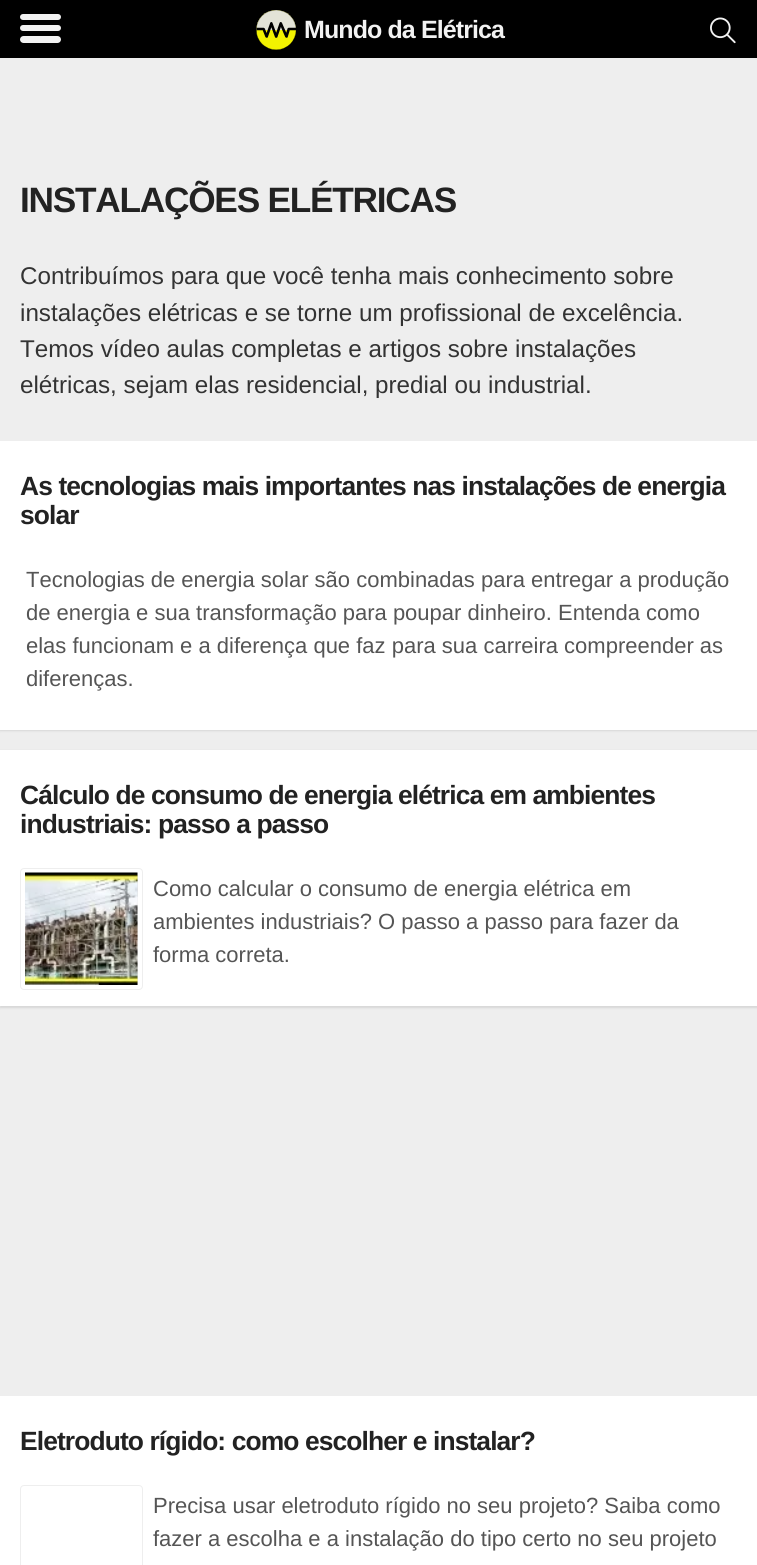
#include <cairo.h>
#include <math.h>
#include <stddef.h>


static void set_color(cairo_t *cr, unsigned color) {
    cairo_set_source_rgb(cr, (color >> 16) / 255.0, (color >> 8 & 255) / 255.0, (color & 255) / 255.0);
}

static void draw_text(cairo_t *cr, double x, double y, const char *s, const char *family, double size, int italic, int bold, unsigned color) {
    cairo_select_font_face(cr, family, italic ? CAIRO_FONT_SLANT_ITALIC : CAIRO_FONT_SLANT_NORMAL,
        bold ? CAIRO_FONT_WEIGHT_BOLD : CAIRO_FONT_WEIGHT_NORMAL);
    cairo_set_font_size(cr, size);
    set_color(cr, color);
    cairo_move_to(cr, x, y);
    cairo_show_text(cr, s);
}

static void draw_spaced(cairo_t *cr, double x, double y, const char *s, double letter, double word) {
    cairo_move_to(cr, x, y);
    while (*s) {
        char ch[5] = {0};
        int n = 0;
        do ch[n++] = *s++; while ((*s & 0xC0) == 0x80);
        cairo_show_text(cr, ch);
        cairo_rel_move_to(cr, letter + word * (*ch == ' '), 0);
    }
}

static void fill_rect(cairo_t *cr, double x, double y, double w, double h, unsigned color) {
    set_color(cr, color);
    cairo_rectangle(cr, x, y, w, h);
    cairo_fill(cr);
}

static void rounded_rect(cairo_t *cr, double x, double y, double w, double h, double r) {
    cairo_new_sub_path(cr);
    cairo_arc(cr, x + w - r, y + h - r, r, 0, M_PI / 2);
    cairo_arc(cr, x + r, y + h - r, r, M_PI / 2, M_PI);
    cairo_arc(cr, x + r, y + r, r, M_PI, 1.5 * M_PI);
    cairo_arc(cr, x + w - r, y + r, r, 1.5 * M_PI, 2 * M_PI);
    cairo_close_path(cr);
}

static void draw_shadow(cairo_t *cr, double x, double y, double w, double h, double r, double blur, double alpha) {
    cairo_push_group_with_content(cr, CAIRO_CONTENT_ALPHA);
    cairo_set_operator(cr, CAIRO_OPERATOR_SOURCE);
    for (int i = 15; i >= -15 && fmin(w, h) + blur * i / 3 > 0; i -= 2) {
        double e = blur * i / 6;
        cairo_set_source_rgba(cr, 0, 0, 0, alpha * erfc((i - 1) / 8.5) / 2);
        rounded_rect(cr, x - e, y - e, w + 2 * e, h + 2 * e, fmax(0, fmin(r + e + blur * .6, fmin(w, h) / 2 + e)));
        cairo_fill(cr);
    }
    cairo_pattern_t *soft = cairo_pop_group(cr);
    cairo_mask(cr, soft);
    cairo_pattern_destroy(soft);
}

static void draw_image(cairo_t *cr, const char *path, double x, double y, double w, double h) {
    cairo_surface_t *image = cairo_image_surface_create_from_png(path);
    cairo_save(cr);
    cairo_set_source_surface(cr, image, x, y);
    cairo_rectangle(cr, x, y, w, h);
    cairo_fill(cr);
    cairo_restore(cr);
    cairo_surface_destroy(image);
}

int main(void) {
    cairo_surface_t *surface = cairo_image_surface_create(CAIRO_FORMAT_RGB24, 757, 1565);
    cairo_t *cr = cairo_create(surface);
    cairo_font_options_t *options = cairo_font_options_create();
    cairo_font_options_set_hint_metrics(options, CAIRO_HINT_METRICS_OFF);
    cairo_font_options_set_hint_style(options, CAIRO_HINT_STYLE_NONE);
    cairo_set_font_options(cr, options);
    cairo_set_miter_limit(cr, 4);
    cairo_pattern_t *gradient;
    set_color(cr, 0x000000);
    cairo_paint(cr);
    set_color(cr, 0xF2F2F2);
    rounded_rect(cr, 20, 14, 41, 6, 3);
    cairo_fill(cr);
    rounded_rect(cr, 20, 25, 41, 6, 3);
    cairo_fill(cr);
    rounded_rect(cr, 20, 36, 41, 7, 3.5);
    cairo_fill(cr);
    draw_image(cr, "assets/img1.png", 256, 10, 40, 40);
    cairo_select_font_face(cr, "Liberation Sans", CAIRO_FONT_SLANT_NORMAL, CAIRO_FONT_WEIGHT_BOLD);
    cairo_set_font_size(cr, 25);
    draw_spaced(cr, 304, 38, "Mundo da Elétrica", -0.9, 0);
    draw_image(cr, "assets/img2.png", 710, 17, 26, 27);
    fill_rect(cr, 0, 58, 757, 1338, 0xEEEEEE);
    cairo_set_font_size(cr, 35.25);
    set_color(cr, 0x222222);
    draw_spaced(cr, 20, 212, "INSTALAÇÕES ELÉTRICAS", -1.25, 0);
    draw_text(cr, 20, 284, "Contribuímos para que você tenha mais conhecimento sobre", "Liberation Sans", 24.2, 0, 0, 0x333333);
    draw_text(cr, 20, 321, "instalações elétricas e se torne um profissional de excelência.", "Liberation Sans", 24.2, 0, 0, 0x333333);
    draw_text(cr, 20, 357, "Temos vídeo aulas completas e artigos sobre instalações", "Liberation Sans", 24.2, 0, 0, 0x333333);
    draw_text(cr, 20, 393, "elétricas, sejam elas residencial, predial ou industrial.", "Liberation Sans", 24.2, 0, 0, 0x333333);
    set_color(cr, 0x000000);
    draw_shadow(cr, 0, 443, 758, 288, 0, 1, 0.1);
    fill_rect(cr, 0, 441, 757, 289, 0xFFFFFF);
    cairo_select_font_face(cr, "Liberation Sans", CAIRO_FONT_SLANT_NORMAL, CAIRO_FONT_WEIGHT_BOLD);
    cairo_set_font_size(cr, 26.4);
    set_color(cr, 0x222222);
    draw_spaced(cr, 20, 495, "As tecnologias mais importantes nas instalações de energia", -0.9, 0);
    draw_spaced(cr, 20, 524, "solar", -0.9, 0);
    draw_text(cr, 26, 587, "Tecnologias de energia solar são combinadas para entregar a produção", "Liberation Sans", 22, 0, 0, 0x555555);
    draw_text(cr, 26, 620, "de energia e sua transformação para poupar dinheiro. Entenda como", "Liberation Sans", 22, 0, 0, 0x555555);
    draw_text(cr, 26, 653, "elas funcionam e a diferença que faz para sua carreira compreender as", "Liberation Sans", 22, 0, 0, 0x555555);
    draw_text(cr, 26, 686, "diferenças.", "Liberation Sans", 22, 0, 0, 0x555555);
    set_color(cr, 0x000000);
    draw_shadow(cr, 0, 751, 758, 257, 0, 1, 0.1);
    fill_rect(cr, 0, 750, 757, 256, 0xFFFFFF);
    cairo_select_font_face(cr, "Liberation Sans", CAIRO_FONT_SLANT_NORMAL, CAIRO_FONT_WEIGHT_BOLD);
    cairo_set_font_size(cr, 26.4);
    set_color(cr, 0x222222);
    draw_spaced(cr, 20, 804, "Cálculo de consumo de energia elétrica em ambientes", -0.9, 0);
    draw_spaced(cr, 20, 833, "industriais: passo a passo", -0.9, 0);
    rounded_rect(cr, 20.5, 868.5, 122, 121, 3.5);
    set_color(cr, 0xEEEEEE);
    cairo_set_line_width(cr, 1);
    cairo_stroke(cr);
    gradient = cairo_pattern_create_linear(145, 974, 2.1, 873);
    cairo_pattern_add_color_stop_rgba(gradient, 0, 0.886, 0.886, 0.886, 1);
    cairo_pattern_add_color_stop_rgba(gradient, 0.07, 0.886, 0.886, 0.886, 1);
    cairo_pattern_add_color_stop_rgba(gradient, 0.07, 0.945, 0.945, 0.945, 1);
    cairo_pattern_add_color_stop_rgba(gradient, 0.14, 0.945, 0.945, 0.945, 1);
    cairo_pattern_add_color_stop_rgba(gradient, 0.14, 0.886, 0.886, 0.886, 1);
    cairo_pattern_add_color_stop_rgba(gradient, 0.21, 0.886, 0.886, 0.886, 1);
    cairo_pattern_add_color_stop_rgba(gradient, 0.21, 0.945, 0.945, 0.945, 1);
    cairo_pattern_add_color_stop_rgba(gradient, 0.29, 0.945, 0.945, 0.945, 1);
    cairo_pattern_add_color_stop_rgba(gradient, 0.29, 0.886, 0.886, 0.886, 1);
    cairo_pattern_add_color_stop_rgba(gradient, 0.36, 0.886, 0.886, 0.886, 1);
    cairo_pattern_add_color_stop_rgba(gradient, 0.36, 0.945, 0.945, 0.945, 1);
    cairo_pattern_add_color_stop_rgba(gradient, 0.43, 0.945, 0.945, 0.945, 1);
    cairo_pattern_add_color_stop_rgba(gradient, 0.43, 0.886, 0.886, 0.886, 1);
    cairo_pattern_add_color_stop_rgba(gradient, 0.5, 0.886, 0.886, 0.886, 1);
    cairo_pattern_add_color_stop_rgba(gradient, 0.5, 0.945, 0.945, 0.945, 1);
    cairo_pattern_add_color_stop_rgba(gradient, 0.57, 0.945, 0.945, 0.945, 1);
    cairo_pattern_add_color_stop_rgba(gradient, 0.57, 0.886, 0.886, 0.886, 1);
    cairo_pattern_add_color_stop_rgba(gradient, 0.64, 0.886, 0.886, 0.886, 1);
    cairo_pattern_add_color_stop_rgba(gradient, 0.64, 0.945, 0.945, 0.945, 1);
    cairo_pattern_add_color_stop_rgba(gradient, 0.71, 0.945, 0.945, 0.945, 1);
    cairo_pattern_add_color_stop_rgba(gradient, 0.71, 0.886, 0.886, 0.886, 1);
    cairo_pattern_add_color_stop_rgba(gradient, 0.79, 0.886, 0.886, 0.886, 1);
    cairo_pattern_add_color_stop_rgba(gradient, 0.79, 0.945, 0.945, 0.945, 1);
    cairo_pattern_add_color_stop_rgba(gradient, 0.86, 0.945, 0.945, 0.945, 1);
    cairo_pattern_add_color_stop_rgba(gradient, 0.86, 0.886, 0.886, 0.886, 1);
    cairo_pattern_add_color_stop_rgba(gradient, 0.93, 0.886, 0.886, 0.886, 1);
    cairo_pattern_add_color_stop_rgba(gradient, 0.93, 0.945, 0.945, 0.945, 1);
    cairo_pattern_add_color_stop_rgba(gradient, 1, 0.945, 0.945, 0.945, 1);
    cairo_set_source(cr, gradient);
    cairo_pattern_destroy(gradient);
    cairo_rectangle(cr, 137, 873, 1, 112);
    cairo_fill(cr);
    draw_image(cr, "assets/img3.png", 25, 872, 113, 113);
    draw_text(cr, 153, 896, "Como calcular o consumo de energia elétrica em", "Liberation Sans", 22, 0, 0, 0x555555);
    draw_text(cr, 153, 929, "ambientes industriais? O passo a passo para fazer da", "Liberation Sans", 22, 0, 0, 0x555555);
    draw_text(cr, 153, 962, "forma correta.", "Liberation Sans", 22, 0, 0, 0x555555);
    fill_rect(cr, 0, 1396, 757, 169, 0xFFFFFF);
    cairo_select_font_face(cr, "Liberation Sans", CAIRO_FONT_SLANT_NORMAL, CAIRO_FONT_WEIGHT_BOLD);
    cairo_set_font_size(cr, 26.4);
    set_color(cr, 0x222222);
    draw_spaced(cr, 20, 1450, "Eletroduto rígido: como escolher e instalar?", -0.9, 0);
    rounded_rect(cr, 20.5, 1485.5, 122, 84, 3.5);
    set_color(cr, 0xEEEEEE);
    cairo_stroke(cr);
    draw_text(cr, 153, 1513, "Precisa usar eletroduto rígido no seu projeto? Saiba como", "Liberation Sans", 22, 0, 0, 0x555555);
    draw_text(cr, 153, 1546, "fazer a escolha e a instalação do tipo certo no seu projeto", "Liberation Sans", 22, 0, 0, 0x555555);
    cairo_surface_write_to_png(surface, "output.png");
    cairo_font_options_destroy(options);
    cairo_destroy(cr);
    cairo_surface_destroy(surface);
    return 0;
}
